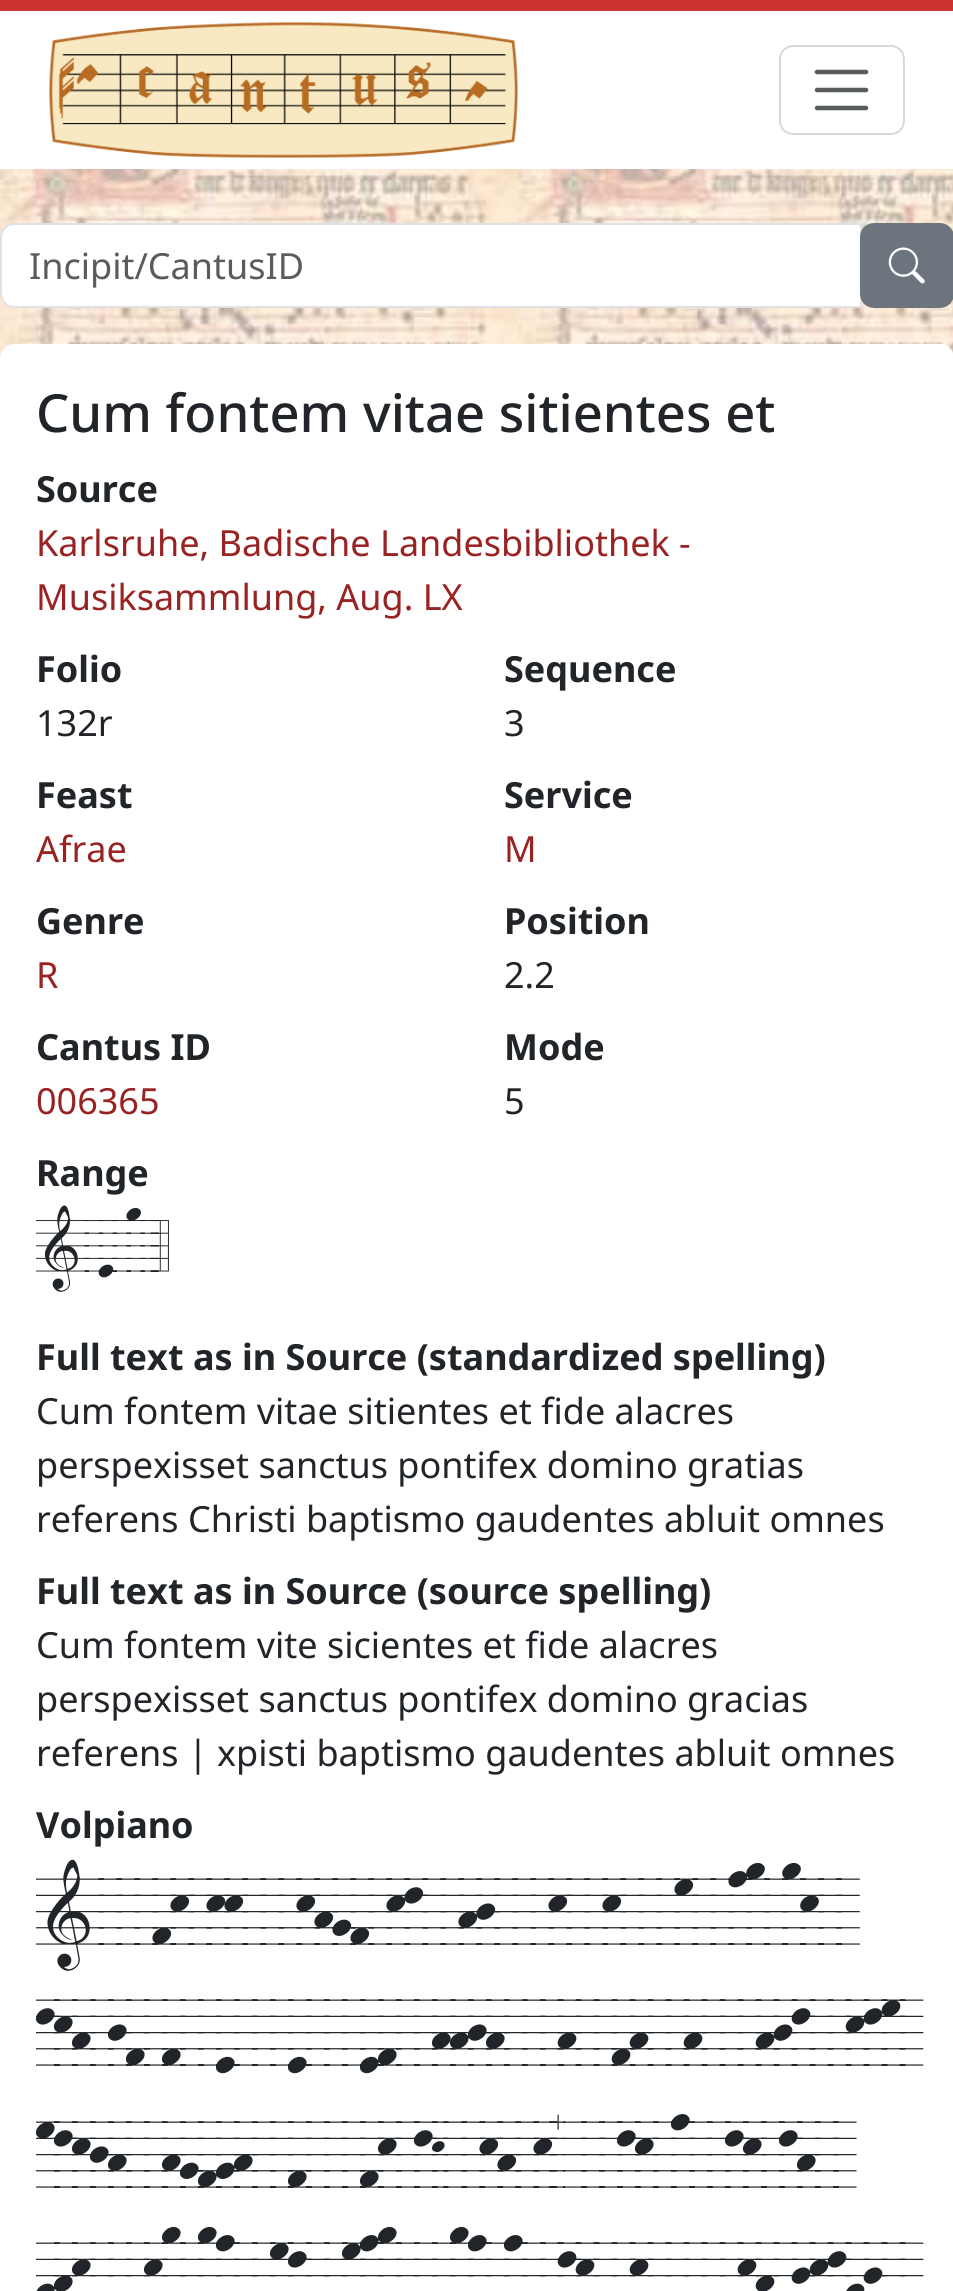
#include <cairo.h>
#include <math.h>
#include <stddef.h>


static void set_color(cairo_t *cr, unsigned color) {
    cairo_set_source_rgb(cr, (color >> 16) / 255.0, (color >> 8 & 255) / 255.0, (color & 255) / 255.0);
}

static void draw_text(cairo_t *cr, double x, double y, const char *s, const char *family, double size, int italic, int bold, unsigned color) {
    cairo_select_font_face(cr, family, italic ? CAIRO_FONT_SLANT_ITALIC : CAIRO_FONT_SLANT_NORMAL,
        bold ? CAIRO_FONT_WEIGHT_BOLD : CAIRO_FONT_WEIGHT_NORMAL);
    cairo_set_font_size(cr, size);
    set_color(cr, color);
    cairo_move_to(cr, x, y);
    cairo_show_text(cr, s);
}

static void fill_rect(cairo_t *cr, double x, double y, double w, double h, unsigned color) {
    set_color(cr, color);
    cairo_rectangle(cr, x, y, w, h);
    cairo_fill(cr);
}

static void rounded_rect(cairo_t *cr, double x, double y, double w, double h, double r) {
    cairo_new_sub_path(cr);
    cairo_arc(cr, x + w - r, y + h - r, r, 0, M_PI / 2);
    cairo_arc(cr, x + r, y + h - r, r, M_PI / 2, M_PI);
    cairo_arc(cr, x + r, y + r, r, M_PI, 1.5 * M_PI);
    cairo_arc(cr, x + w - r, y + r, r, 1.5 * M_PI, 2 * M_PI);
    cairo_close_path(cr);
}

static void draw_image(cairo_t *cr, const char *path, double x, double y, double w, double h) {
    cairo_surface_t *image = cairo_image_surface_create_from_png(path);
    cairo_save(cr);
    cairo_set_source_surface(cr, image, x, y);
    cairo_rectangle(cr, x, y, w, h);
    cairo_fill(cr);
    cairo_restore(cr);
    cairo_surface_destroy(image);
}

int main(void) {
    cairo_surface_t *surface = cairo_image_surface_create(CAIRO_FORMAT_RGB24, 953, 2291);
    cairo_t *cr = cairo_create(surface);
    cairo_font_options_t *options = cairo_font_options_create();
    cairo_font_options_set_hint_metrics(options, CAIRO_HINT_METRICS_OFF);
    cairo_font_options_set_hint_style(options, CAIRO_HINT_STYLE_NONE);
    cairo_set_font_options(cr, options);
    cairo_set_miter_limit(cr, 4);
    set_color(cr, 0xFFFFFF);
    cairo_paint(cr);
    draw_image(cr, "assets/img1.png", 0, 169, 953, 189);
    fill_rect(cr, 0, 0, 953, 11, 0xCC3333);
    draw_image(cr, "assets/img2.png", 49, 22, 469, 136);
    rounded_rect(cr, 780, 46, 124, 88, 13);
    set_color(cr, 0xD9D9D9);
    cairo_stroke(cr);
    cairo_new_path(cr);
    cairo_move_to(cr, 817, 72);
    cairo_line_to(cr, 866, 72);
    cairo_move_to(cr, 817, 90);
    cairo_line_to(cr, 866, 90);
    cairo_move_to(cr, 817, 108);
    cairo_line_to(cr, 866, 108);
    set_color(cr, 0x595C5F);
    cairo_set_line_width(cr, 4.5);
    cairo_set_line_cap(cr, CAIRO_LINE_CAP_ROUND);
    cairo_stroke(cr);
    set_color(cr, 0xFFFFFF);
    cairo_new_path(cr);
    cairo_move_to(cr, 13, 225);
    cairo_line_to(cr, 860, 225);
    cairo_line_to(cr, 860, 306);
    cairo_line_to(cr, 13, 306);
    cairo_curve_to(cr, 7, 306, 2, 301, 2, 295);
    cairo_line_to(cr, 2, 236);
    cairo_curve_to(cr, 2, 230, 7, 225, 13, 225);
    cairo_close_path(cr);
    cairo_fill(cr);
    cairo_new_path(cr);
    cairo_move_to(cr, 14, 224);
    cairo_line_to(cr, 861, 224);
    cairo_line_to(cr, 861, 307);
    cairo_line_to(cr, 14, 307);
    cairo_curve_to(cr, 7, 307, 1, 301, 1, 294);
    cairo_line_to(cr, 1, 237);
    cairo_curve_to(cr, 1, 230, 7, 224, 14, 224);
    cairo_close_path(cr);
    set_color(cr, 0xDEE2E6);
    cairo_set_line_width(cr, 2);
    cairo_set_line_cap(cr, CAIRO_LINE_CAP_BUTT);
    cairo_stroke(cr);
    draw_text(cr, 29, 279, "Incipit/CantusID", "Noto Sans", 36, 0, 0, 0x595C5F);
    set_color(cr, 0x6C757D);
    rounded_rect(cr, 861, 224, 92, 83, 13);
    cairo_fill_preserve(cr);
    cairo_stroke(cr);
    draw_image(cr, "assets/img3.png", 888, 247, 37, 37);
    set_color(cr, 0xFFFFFF);
    rounded_rect(cr, 0, 344, 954, 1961, 14);
    cairo_fill(cr);
    draw_text(cr, 36, 432, "Cum fontem vitae sitientes et", "Noto Sans Medium", 52.5, 0, 0, 0x212529);
    draw_text(cr, 36, 502, "Source", "Noto Sans", 36, 0, 1, 0x212529);
    draw_text(cr, 36, 556, "Karlsruhe, Badische Landesbibliothek -", "Noto Sans", 36, 0, 0, 0x992222);
    draw_text(cr, 36, 610, "Musiksammlung, Aug. LX", "Noto Sans", 36, 0, 0, 0x992222);
    draw_text(cr, 36, 682, "Folio", "Noto Sans", 36, 0, 1, 0x212529);
    draw_text(cr, 36, 736, "132r", "Noto Sans", 36, 0, 0, 0x212529);
    draw_text(cr, 504, 682, "Sequence", "Noto Sans", 36, 0, 1, 0x212529);
    draw_text(cr, 504, 736, "3", "Noto Sans", 36, 0, 0, 0x212529);
    draw_text(cr, 36, 808, "Feast", "Noto Sans", 36, 0, 1, 0x212529);
    draw_text(cr, 36, 862, "Afrae", "Noto Sans", 36, 0, 0, 0x992222);
    draw_text(cr, 504, 808, "Service", "Noto Sans", 36, 0, 1, 0x212529);
    draw_text(cr, 504, 862, "M", "Noto Sans", 36, 0, 0, 0x992222);
    draw_text(cr, 36, 934, "Genre", "Noto Sans", 36, 0, 1, 0x212529);
    draw_text(cr, 36, 988, "R", "Noto Sans", 36, 0, 0, 0x992222);
    draw_text(cr, 504, 934, "Position", "Noto Sans", 36, 0, 1, 0x212529);
    draw_text(cr, 504, 988, "2.2", "Noto Sans", 36, 0, 0, 0x212529);
    draw_text(cr, 36, 1060, "Cantus ID", "Noto Sans", 36, 0, 1, 0x212529);
    draw_text(cr, 36, 1114, "006365", "Noto Sans", 36, 0, 0, 0x992222);
    draw_text(cr, 504, 1060, "Mode", "Noto Sans", 36, 0, 1, 0x212529);
    draw_text(cr, 504, 1114, "5", "Noto Sans", 36, 0, 0, 0x212529);
    draw_text(cr, 36, 1186, "Range", "Noto Sans", 36, 0, 1, 0x212529);
    draw_text(cr, 36, 1271, "1-e-o-4", "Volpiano", 63, 0, 0, 0x212529);
    draw_text(cr, 36, 1370, "Full text as in Source (standardized spelling)", "Noto Sans", 36, 0, 1, 0x212529);
    draw_text(cr, 36, 1424, "Cum fontem vitae sitientes et fide alacres", "Noto Sans", 36, 0, 0, 0x212529);
    draw_text(cr, 36, 1478, "perspexisset sanctus pontifex domino gratias", "Noto Sans", 36, 0, 0, 0x212529);
    draw_text(cr, 36, 1532, "referens Christi baptismo gaudentes abluit omnes", "Noto Sans", 36, 0, 0, 0x212529);
    draw_text(cr, 36, 1604, "Full text as in Source (source spelling)", "Noto Sans", 36, 0, 1, 0x212529);
    draw_text(cr, 36, 1658, "Cum fontem vite sicientes et fide alacres", "Noto Sans", 36, 0, 0, 0x212529);
    draw_text(cr, 36, 1712, "perspexisset sanctus pontifex domino gracias", "Noto Sans", 36, 0, 0, 0x212529);
    draw_text(cr, 36, 1766, "referens | xpisti baptismo gaudentes abluit omnes", "Noto Sans", 36, 0, 0, 0x212529);
    draw_text(cr, 36, 1838, "Volpiano", "Noto Sans", 36, 0, 1, 0x212529);
    draw_text(cr, 36, 1944, "1---fk-kk---khgf-kl--hj---k--k---m--no-ok--", "Volpiano", 81, 0, 0, 0x212529);
    draw_text(cr, 36, 2065, "lkh-jf-f--e---e---ef--hhjh---h--fh--h---hjl--klm-", "Volpiano", 81, 0, 0, 0x212529);
    draw_text(cr, 36, 2187, "mlkjh--hgfgh--f---fk-lK--kh-k7---lk-n--lk-lh--", "Volpiano", 81, 0, 0, 0x212529);
    draw_text(cr, 36, 2308, "ghk---ko-on--ml--mno---on-n--lk--k---f-kh-jklgj--", "Volpiano", 81, 0, 0, 0x212529);
    cairo_surface_write_to_png(surface, "output.png");
    cairo_font_options_destroy(options);
    cairo_destroy(cr);
    cairo_surface_destroy(surface);
    return 0;
}
